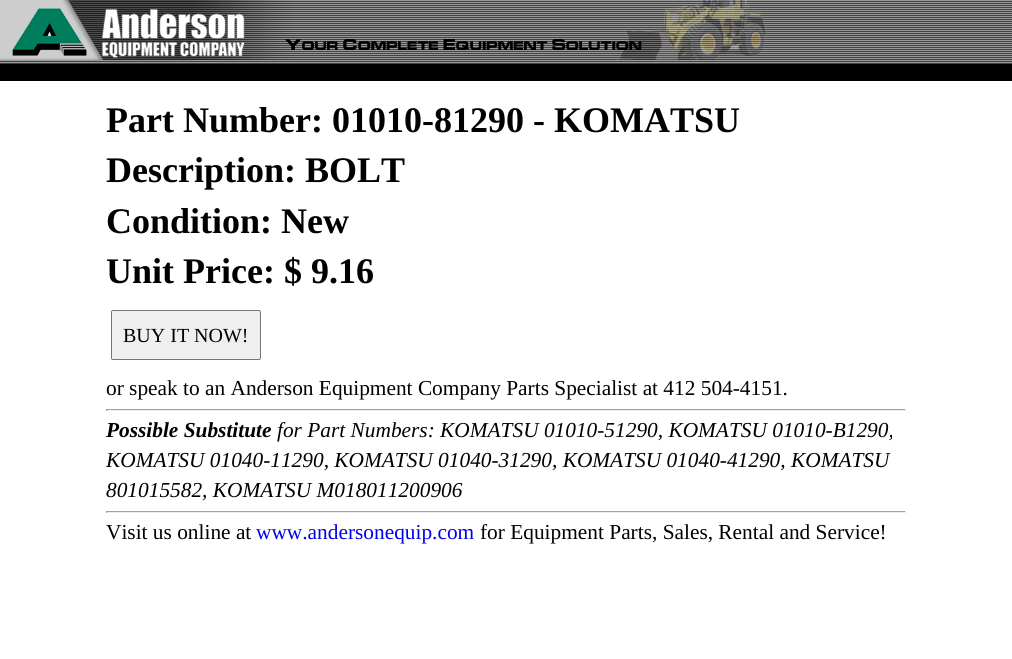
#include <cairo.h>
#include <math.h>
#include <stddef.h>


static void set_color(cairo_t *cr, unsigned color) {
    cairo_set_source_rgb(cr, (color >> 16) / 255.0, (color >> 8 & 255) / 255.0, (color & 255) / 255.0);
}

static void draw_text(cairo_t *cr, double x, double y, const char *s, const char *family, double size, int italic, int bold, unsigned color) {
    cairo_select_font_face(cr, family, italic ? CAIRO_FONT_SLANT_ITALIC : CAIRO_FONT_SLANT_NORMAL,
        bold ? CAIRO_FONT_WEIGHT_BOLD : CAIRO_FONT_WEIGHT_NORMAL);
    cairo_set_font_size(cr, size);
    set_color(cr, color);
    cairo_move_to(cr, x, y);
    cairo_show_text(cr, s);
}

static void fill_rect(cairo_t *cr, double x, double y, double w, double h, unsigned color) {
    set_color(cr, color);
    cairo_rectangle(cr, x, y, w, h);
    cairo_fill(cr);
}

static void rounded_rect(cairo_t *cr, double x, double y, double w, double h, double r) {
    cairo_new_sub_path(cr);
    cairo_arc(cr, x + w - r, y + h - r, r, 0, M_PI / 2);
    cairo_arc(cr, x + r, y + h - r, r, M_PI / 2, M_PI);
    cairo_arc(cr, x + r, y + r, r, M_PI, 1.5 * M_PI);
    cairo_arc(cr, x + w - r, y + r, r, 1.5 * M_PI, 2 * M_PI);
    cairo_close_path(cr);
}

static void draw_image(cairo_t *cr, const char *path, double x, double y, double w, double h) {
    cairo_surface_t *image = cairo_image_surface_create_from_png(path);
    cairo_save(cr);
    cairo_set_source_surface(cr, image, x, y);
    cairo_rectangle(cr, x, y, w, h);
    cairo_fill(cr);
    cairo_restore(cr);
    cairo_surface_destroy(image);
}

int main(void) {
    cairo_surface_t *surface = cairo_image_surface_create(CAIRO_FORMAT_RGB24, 1012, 659);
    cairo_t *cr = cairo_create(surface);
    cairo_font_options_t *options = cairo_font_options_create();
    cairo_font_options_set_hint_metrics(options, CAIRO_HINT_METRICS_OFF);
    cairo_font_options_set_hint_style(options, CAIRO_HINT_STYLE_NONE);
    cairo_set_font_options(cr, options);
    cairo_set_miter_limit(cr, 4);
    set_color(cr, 0xFFFFFF);
    cairo_paint(cr);
    draw_image(cr, "assets/img1.png", 0, 0, 1012, 64);
    draw_image(cr, "assets/img2.png", 0, 0, 279, 60);
    draw_image(cr, "assets/img3.png", 279, 0, 489, 60);
    fill_rect(cr, 0, 64, 1012, 17, 0x000000);
    draw_text(cr, 106, 132, "Part Number: 01010-81290 - KOMATSU", "Liberation Serif", 36, 0, 1, 0x000000);
    draw_text(cr, 106, 182, "Description: BOLT", "Liberation Serif", 36, 0, 1, 0x000000);
    draw_text(cr, 106, 233, "Condition: New", "Liberation Serif", 36, 0, 1, 0x000000);
    draw_text(cr, 106, 283, "Unit Price: $ 9.16", "Liberation Serif", 36, 0, 1, 0x000000);
    set_color(cr, 0xEFEFEF);
    rounded_rect(cr, 111.5, 310.5, 149, 49, 1.5);
    cairo_fill_preserve(cr);
    set_color(cr, 0x767676);
    cairo_set_line_width(cr, 1);
    cairo_stroke(cr);
    draw_text(cr, 123, 342, "BUY IT NOW!", "Liberation Serif", 20, 0, 0, 0x000000);
    draw_text(cr, 106, 395, "or speak to an Anderson Equipment Company Parts Specialist at 412 504-4151.", "Liberation Serif", 21.35, 0, 0, 0x000000);
    fill_rect(cr, 106, 409, 800, 1, 0x9F9F9F);
    fill_rect(cr, 905, 409, 1, 2, 0xEEEEEE);
    fill_rect(cr, 106, 410, 800, 1, 0xEEEEEE);
    fill_rect(cr, 106, 409, 1, 2, 0x9F9F9F);
    draw_text(cr, 106, 437, "Possible Substitute", "Liberation Serif", 21.35, 1, 1, 0x000000);
    draw_text(cr, 277, 437, "for Part Numbers: KOMATSU 01010-51290, KOMATSU 01010-B1290,", "Liberation Serif", 21.35, 1, 0, 0x000000);
    draw_text(cr, 106, 467, "KOMATSU 01040-11290, KOMATSU 01040-31290, KOMATSU 01040-41290, KOMATSU", "Liberation Serif", 21.35, 1, 0, 0x000000);
    draw_text(cr, 106, 497, "801015582, KOMATSU M018011200906", "Liberation Serif", 21.35, 1, 0, 0x000000);
    fill_rect(cr, 106, 511, 800, 1, 0x9F9F9F);
    fill_rect(cr, 905, 511, 1, 2, 0xEEEEEE);
    fill_rect(cr, 106, 512, 800, 1, 0xEEEEEE);
    fill_rect(cr, 106, 511, 1, 2, 0x9F9F9F);
    draw_text(cr, 106, 539, "Visit us online at", "Liberation Serif", 21.35, 0, 0, 0x000000);
    draw_text(cr, 256, 539, "www.andersonequip.com", "Liberation Serif", 21.35, 0, 0, 0x0000EE);
    draw_text(cr, 480, 539, "for Equipment Parts, Sales, Rental and Service!", "Liberation Serif", 21.35, 0, 0, 0x000000);
    cairo_surface_write_to_png(surface, "output.png");
    cairo_font_options_destroy(options);
    cairo_destroy(cr);
    cairo_surface_destroy(surface);
    return 0;
}
